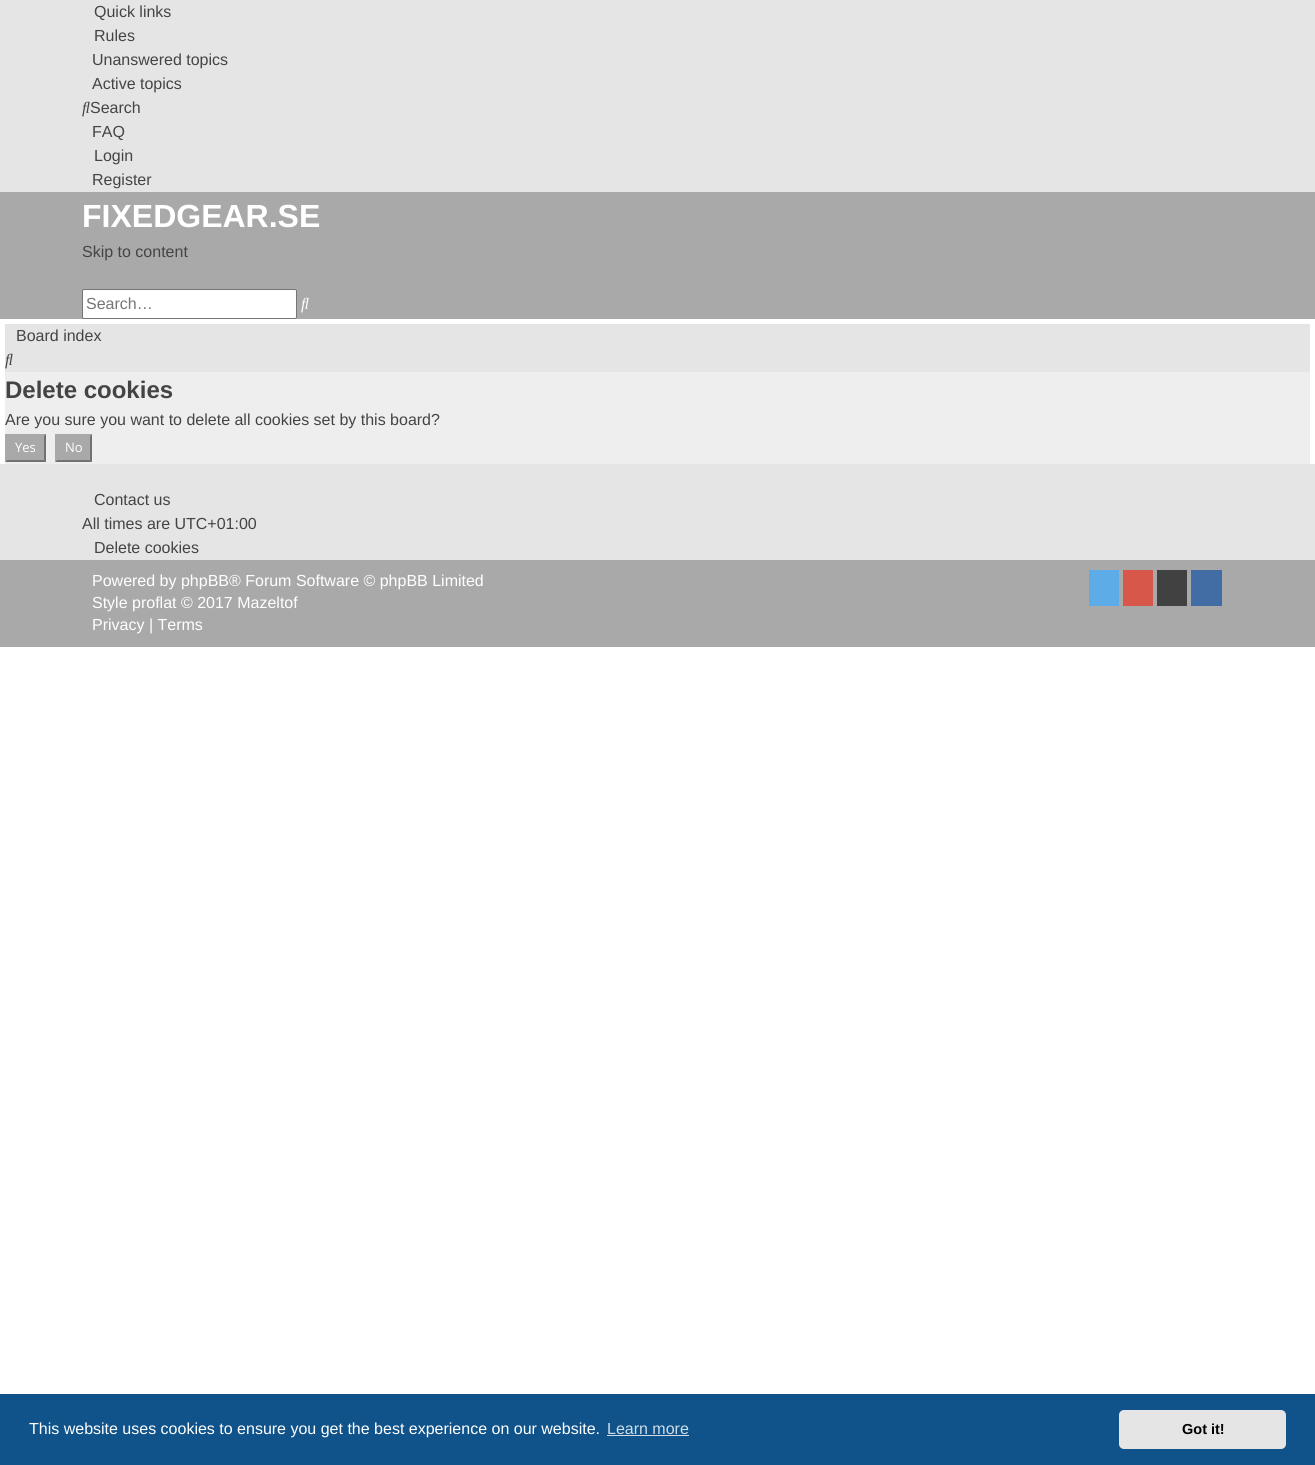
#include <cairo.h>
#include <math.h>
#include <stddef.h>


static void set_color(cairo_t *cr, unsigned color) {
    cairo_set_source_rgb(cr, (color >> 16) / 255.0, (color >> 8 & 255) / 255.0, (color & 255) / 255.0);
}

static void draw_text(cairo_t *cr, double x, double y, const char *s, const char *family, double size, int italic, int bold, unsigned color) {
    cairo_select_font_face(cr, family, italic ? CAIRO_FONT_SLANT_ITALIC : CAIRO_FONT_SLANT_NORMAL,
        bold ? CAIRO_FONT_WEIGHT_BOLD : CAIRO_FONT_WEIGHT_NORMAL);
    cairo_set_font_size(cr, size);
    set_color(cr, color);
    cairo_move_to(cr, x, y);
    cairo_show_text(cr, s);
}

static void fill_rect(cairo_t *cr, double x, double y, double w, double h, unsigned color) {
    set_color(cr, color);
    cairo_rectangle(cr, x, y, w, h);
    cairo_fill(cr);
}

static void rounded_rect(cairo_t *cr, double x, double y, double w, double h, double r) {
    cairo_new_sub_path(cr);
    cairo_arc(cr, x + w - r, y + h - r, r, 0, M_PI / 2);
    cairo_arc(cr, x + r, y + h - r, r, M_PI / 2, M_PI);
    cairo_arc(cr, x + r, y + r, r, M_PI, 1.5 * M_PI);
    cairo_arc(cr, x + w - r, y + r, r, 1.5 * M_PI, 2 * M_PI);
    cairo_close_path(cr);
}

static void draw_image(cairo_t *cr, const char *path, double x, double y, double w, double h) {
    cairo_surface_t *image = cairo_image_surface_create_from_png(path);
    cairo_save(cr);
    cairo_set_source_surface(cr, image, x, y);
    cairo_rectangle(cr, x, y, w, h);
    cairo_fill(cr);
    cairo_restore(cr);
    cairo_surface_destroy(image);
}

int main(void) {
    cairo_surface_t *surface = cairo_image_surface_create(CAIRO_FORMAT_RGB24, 1315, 1465);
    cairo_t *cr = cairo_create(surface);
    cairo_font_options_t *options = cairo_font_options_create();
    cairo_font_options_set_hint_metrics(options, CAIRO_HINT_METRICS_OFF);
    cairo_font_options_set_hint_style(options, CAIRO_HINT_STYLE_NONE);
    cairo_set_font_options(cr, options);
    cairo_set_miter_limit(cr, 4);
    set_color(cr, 0xFFFFFF);
    cairo_paint(cr);
    fill_rect(cr, 0, 0, 1315, 192, 0xE5E5E5);
    draw_text(cr, 94, 17, "Quick links", "Liberation Sans", 16, 0, 0, 0x444444);
    draw_text(cr, 94, 41, "Rules", "Liberation Sans", 16, 0, 0, 0x444444);
    draw_text(cr, 92, 65, "Unanswered topics", "Liberation Sans", 16, 0, 0, 0x444444);
    draw_text(cr, 92, 89, "Active topics", "Liberation Sans", 16, 0, 0, 0x444444);
    draw_image(cr, "assets/img1.png", 82, 101, 8, 16);
    draw_text(cr, 90, 113, "Search", "Liberation Sans", 16, 0, 0, 0x444444);
    draw_text(cr, 92, 137, "FAQ", "Liberation Sans", 16, 0, 0, 0x444444);
    draw_text(cr, 94, 161, "Login", "Liberation Sans", 16, 0, 0, 0x444444);
    draw_text(cr, 92, 185, "Register", "Liberation Sans", 16, 0, 0, 0x444444);
    fill_rect(cr, 0, 192, 1315, 127, 0xA9A9A9);
    draw_text(cr, 82, 227, "FIXEDGEAR.SE", "Liberation Sans", 32, 0, 1, 0xFFFFFF);
    draw_text(cr, 82, 257, "Skip to content", "Liberation Sans", 16, 0, 0, 0x444444);
    set_color(cr, 0xFFFFFF);
    rounded_rect(cr, 82.5, 289.5, 214, 29, 1.5);
    cairo_fill_preserve(cr);
    set_color(cr, 0x767676);
    cairo_set_line_width(cr, 1);
    cairo_stroke(cr);
    draw_text(cr, 86, 309, "Search…", "Liberation Sans", 16, 0, 0, 0x757575);
    draw_image(cr, "assets/img2.png", 301, 297, 8, 16);
    fill_rect(cr, 5, 324, 1305, 48, 0xE5E5E5);
    draw_text(cr, 16, 341, "Board index", "Liberation Sans", 16, 0, 0, 0x444444);
    draw_image(cr, "assets/img1.png", 5, 353, 8, 16);
    fill_rect(cr, 5, 372, 1305, 92, 0xEEEEEE);
    draw_text(cr, 5, 398, "Delete cookies", "Liberation Sans", 24, 0, 1, 0x444444);
    draw_text(cr, 5, 425, "Are you sure you want to delete all cookies set by this board?", "Liberation Sans", 16, 0, 0, 0x444444);
    fill_rect(cr, 5, 434, 41, 28, 0xA9A9A9);
    set_color(cr, 0x717171);
    cairo_new_path(cr);
    cairo_move_to(cr, 46, 434);
    cairo_line_to(cr, 46, 462);
    cairo_line_to(cr, 44, 460);
    cairo_line_to(cr, 44, 436);
    cairo_close_path(cr);
    cairo_fill(cr);
    cairo_new_path(cr);
    cairo_move_to(cr, 46, 462);
    cairo_line_to(cr, 5, 462);
    cairo_line_to(cr, 7, 460);
    cairo_line_to(cr, 44, 460);
    cairo_close_path(cr);
    cairo_fill(cr);
    set_color(cr, 0xA9A9A9);
    cairo_new_path(cr);
    cairo_move_to(cr, 5, 462);
    cairo_line_to(cr, 5, 434);
    cairo_line_to(cr, 7, 436);
    cairo_line_to(cr, 7, 460);
    cairo_close_path(cr);
    cairo_fill(cr);
    draw_text(cr, 15, 452, "Yes", "Open Sans", 13, 0, 0, 0xFFFFFF);
    fill_rect(cr, 55, 434, 37, 28, 0xA9A9A9);
    set_color(cr, 0x717171);
    cairo_new_path(cr);
    cairo_move_to(cr, 92, 434);
    cairo_line_to(cr, 92, 462);
    cairo_line_to(cr, 90, 460);
    cairo_line_to(cr, 90, 436);
    cairo_close_path(cr);
    cairo_fill(cr);
    cairo_new_path(cr);
    cairo_move_to(cr, 92, 462);
    cairo_line_to(cr, 55, 462);
    cairo_line_to(cr, 57, 460);
    cairo_line_to(cr, 90, 460);
    cairo_close_path(cr);
    cairo_fill(cr);
    set_color(cr, 0xA9A9A9);
    cairo_new_path(cr);
    cairo_move_to(cr, 55, 462);
    cairo_line_to(cr, 55, 434);
    cairo_line_to(cr, 57, 436);
    cairo_line_to(cr, 57, 460);
    cairo_close_path(cr);
    cairo_fill(cr);
    draw_text(cr, 65, 452, "No", "Open Sans", 13, 0, 0, 0xFFFFFF);
    fill_rect(cr, 0, 464, 1315, 96, 0xE5E5E5);
    draw_text(cr, 94, 505, "Contact us", "Liberation Sans", 16, 0, 0, 0x444444);
    draw_text(cr, 82, 529, "All times are UTC+01:00", "Liberation Sans", 16, 0, 0, 0x444444);
    draw_text(cr, 94, 553, "Delete cookies", "Liberation Sans", 16, 0, 0, 0x444444);
    fill_rect(cr, 0, 560, 1315, 87, 0xA9A9A9);
    draw_text(cr, 92, 586, "Powered by phpBB® Forum Software © phpBB Limited", "Liberation Sans", 16, 0, 0, 0xFFFFFF);
    draw_text(cr, 92, 608, "Style proflat © 2017 Mazeltof", "Liberation Sans", 16, 0, 0, 0xFFFFFF);
    draw_text(cr, 92, 630, "Privacy | Terms", "Liberation Sans", 16, 0, 0, 0xFFFFFF);
    fill_rect(cr, 1089, 570, 30, 36, 0x5DACE7);
    fill_rect(cr, 1123, 570, 30, 36, 0xD7574B);
    fill_rect(cr, 1157, 570, 30, 36, 0x414141);
    fill_rect(cr, 1191, 570, 31, 36, 0x426CA4);
    fill_rect(cr, 0, 1394, 1315, 71, 0x0F538A);
    draw_text(cr, 29, 1434, "This website uses cookies to ensure you get the best experience on our website.", "Liberation Sans", 16, 0, 0, 0xFFFFFF);
    draw_text(cr, 607, 1434, "Learn more", "Liberation Sans", 16, 0, 0, 0xCFDDE8);
    fill_rect(cr, 607, 1435, 82, 1, 0xCFDDE8);
    set_color(cr, 0xE5E5E5);
    rounded_rect(cr, 1119, 1410, 167, 39, 5);
    cairo_fill(cr);
    draw_text(cr, 1182, 1434, "Got it!", "Liberation Sans", 14.5, 0, 1, 0x000000);
    cairo_surface_write_to_png(surface, "output.png");
    cairo_font_options_destroy(options);
    cairo_destroy(cr);
    cairo_surface_destroy(surface);
    return 0;
}
